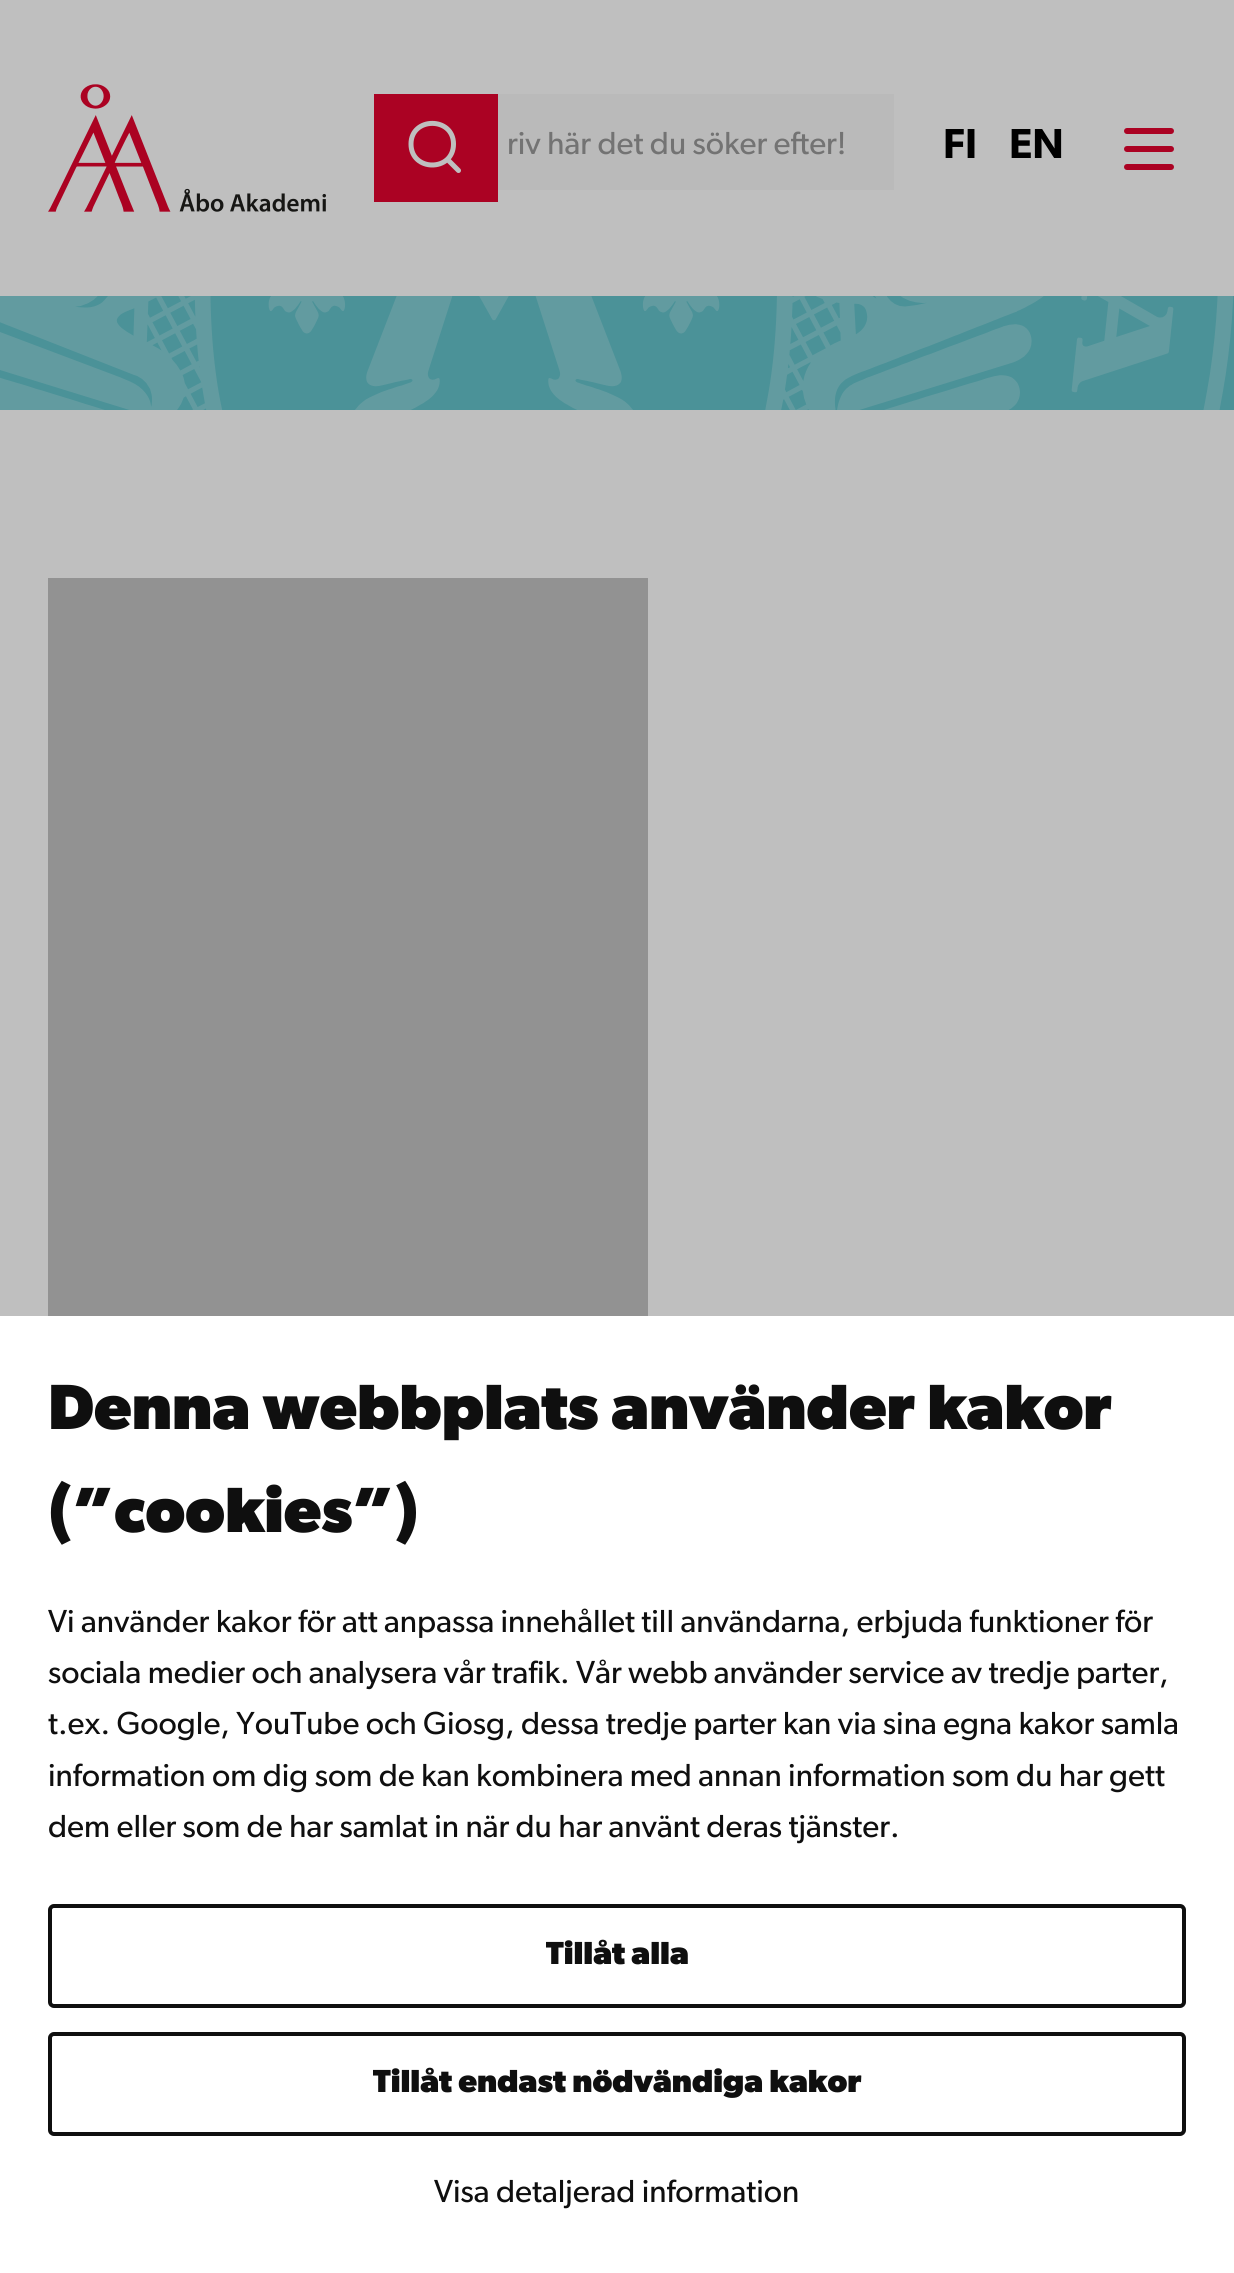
#include <cairo.h>
#include <math.h>
#include <stddef.h>


static void set_color(cairo_t *cr, unsigned color) {
    cairo_set_source_rgb(cr, (color >> 16) / 255.0, (color >> 8 & 255) / 255.0, (color & 255) / 255.0);
}

static void draw_text(cairo_t *cr, double x, double y, const char *s, const char *family, double size, int italic, int bold, unsigned color) {
    cairo_select_font_face(cr, family, italic ? CAIRO_FONT_SLANT_ITALIC : CAIRO_FONT_SLANT_NORMAL,
        bold ? CAIRO_FONT_WEIGHT_BOLD : CAIRO_FONT_WEIGHT_NORMAL);
    cairo_set_font_size(cr, size);
    set_color(cr, color);
    cairo_move_to(cr, x, y);
    cairo_show_text(cr, s);
}

static void fill_rect(cairo_t *cr, double x, double y, double w, double h, unsigned color) {
    set_color(cr, color);
    cairo_rectangle(cr, x, y, w, h);
    cairo_fill(cr);
}

static void rounded_rect(cairo_t *cr, double x, double y, double w, double h, double r) {
    cairo_new_sub_path(cr);
    cairo_arc(cr, x + w - r, y + h - r, r, 0, M_PI / 2);
    cairo_arc(cr, x + r, y + h - r, r, M_PI / 2, M_PI);
    cairo_arc(cr, x + r, y + r, r, M_PI, 1.5 * M_PI);
    cairo_arc(cr, x + w - r, y + r, r, 1.5 * M_PI, 2 * M_PI);
    cairo_close_path(cr);
}

static void draw_image(cairo_t *cr, const char *path, double x, double y, double w, double h) {
    cairo_surface_t *image = cairo_image_surface_create_from_png(path);
    cairo_save(cr);
    cairo_set_source_surface(cr, image, x, y);
    cairo_rectangle(cr, x, y, w, h);
    cairo_fill(cr);
    cairo_restore(cr);
    cairo_surface_destroy(image);
}

int main(void) {
    cairo_surface_t *surface = cairo_image_surface_create(CAIRO_FORMAT_RGB24, 1234, 2273);
    cairo_t *cr = cairo_create(surface);
    cairo_font_options_t *options = cairo_font_options_create();
    cairo_font_options_set_hint_metrics(options, CAIRO_HINT_METRICS_OFF);
    cairo_font_options_set_hint_style(options, CAIRO_HINT_STYLE_NONE);
    cairo_set_font_options(cr, options);
    cairo_set_miter_limit(cr, 4);
    set_color(cr, 0xBFBFBF);
    cairo_paint(cr);
    draw_image(cr, "assets/img1.png", 48, 84, 278, 128);
    fill_rect(cr, 374, 94, 124, 108, 0xAB0223);
    cairo_new_path(cr);
    cairo_move_to(cr, 458.5, 170.5);
    cairo_line_to(cr, 447.5, 159.5);
    cairo_close_path(cr);
    cairo_move_to(cr, 453.5, 144);
    cairo_curve_to(cr, 453.5, 172, 411, 172, 411, 144);
    cairo_curve_to(cr, 411, 116.5, 453.5, 116.5, 453.5, 144);
    cairo_close_path(cr);
    set_color(cr, 0xBFBFBF);
    cairo_set_line_width(cr, 5);
    cairo_set_line_cap(cr, CAIRO_LINE_CAP_ROUND);
    cairo_set_line_join(cr, CAIRO_LINE_JOIN_ROUND);
    cairo_stroke(cr);
    fill_rect(cr, 498, 94, 396, 96, 0xBABABA);
    draw_text(cr, 507, 154, "riv här det du söker efter!", "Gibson", 32, 0, 0, 0x737373);
    draw_text(cr, 943, 158, "FI", "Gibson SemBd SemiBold", 42, 0, 0, 0x000000);
    draw_text(cr, 1009, 158, "EN", "Gibson SemBd SemiBold", 42, 0, 0, 0x000000);
    set_color(cr, 0xAB0223);
    rounded_rect(cr, 1124, 128, 50, 6, 3);
    cairo_fill(cr);
    rounded_rect(cr, 1124, 146, 50, 6, 3);
    cairo_fill(cr);
    rounded_rect(cr, 1124, 164, 50, 6, 3);
    cairo_fill(cr);
    fill_rect(cr, 0, 296, 1234, 114, 0x4B9298);
    draw_image(cr, "assets/img2.png", 0, 296, 1234, 114);
    fill_rect(cr, 48, 578, 600, 738, 0x929292);
    fill_rect(cr, 0, 1316, 1234, 957, 0xFFFFFF);
    draw_text(cr, 48, 1429, "Denna webbplats använder kakor", "Gibson", 64, 0, 1, 0x0F0F0F);
    draw_text(cr, 48, 1532, "(”cookies”)", "Gibson", 64, 0, 1, 0x0F0F0F);
    draw_text(cr, 48, 1632, "Vi använder kakor för att anpassa innehållet till användarna, erbjuda funktioner för", "Gibson", 32, 0, 0, 0x0F0F0F);
    draw_text(cr, 48, 1683, "sociala medier och analysera vår trafik. Vår webb använder service av tredje parter,", "Gibson", 32, 0, 0, 0x0F0F0F);
    draw_text(cr, 48, 1734, "t.ex. Google, YouTube och Giosg, dessa tredje parter kan via sina egna kakor samla", "Gibson", 32, 0, 0, 0x0F0F0F);
    draw_text(cr, 48, 1786, "information om dig som de kan kombinera med annan information som du har gett", "Gibson", 32, 0, 0, 0x0F0F0F);
    draw_text(cr, 48, 1837, "dem eller som de har samlat in när du har använt deras tjänster.", "Gibson", 32, 0, 0, 0x0F0F0F);
    rounded_rect(cr, 50, 1906, 1134, 100, 4);
    cairo_set_line_width(cr, 4);
    cairo_set_line_cap(cr, CAIRO_LINE_CAP_BUTT);
    cairo_set_line_join(cr, CAIRO_LINE_JOIN_MITER);
    cairo_stroke(cr);
    draw_text(cr, 546, 1964, "Tillåt alla", "Gibson", 32, 0, 1, 0x0F0F0F);
    rounded_rect(cr, 50, 2034, 1134, 100, 4);
    cairo_stroke(cr);
    draw_text(cr, 373, 2092, "Tillåt endast nödvändiga kakor", "Gibson", 32, 0, 1, 0x0F0F0F);
    draw_text(cr, 434, 2202, "Visa detaljerad information", "Gibson", 32, 0, 0, 0x0F0F0F);
    cairo_surface_write_to_png(surface, "output.png");
    cairo_font_options_destroy(options);
    cairo_destroy(cr);
    cairo_surface_destroy(surface);
    return 0;
}
